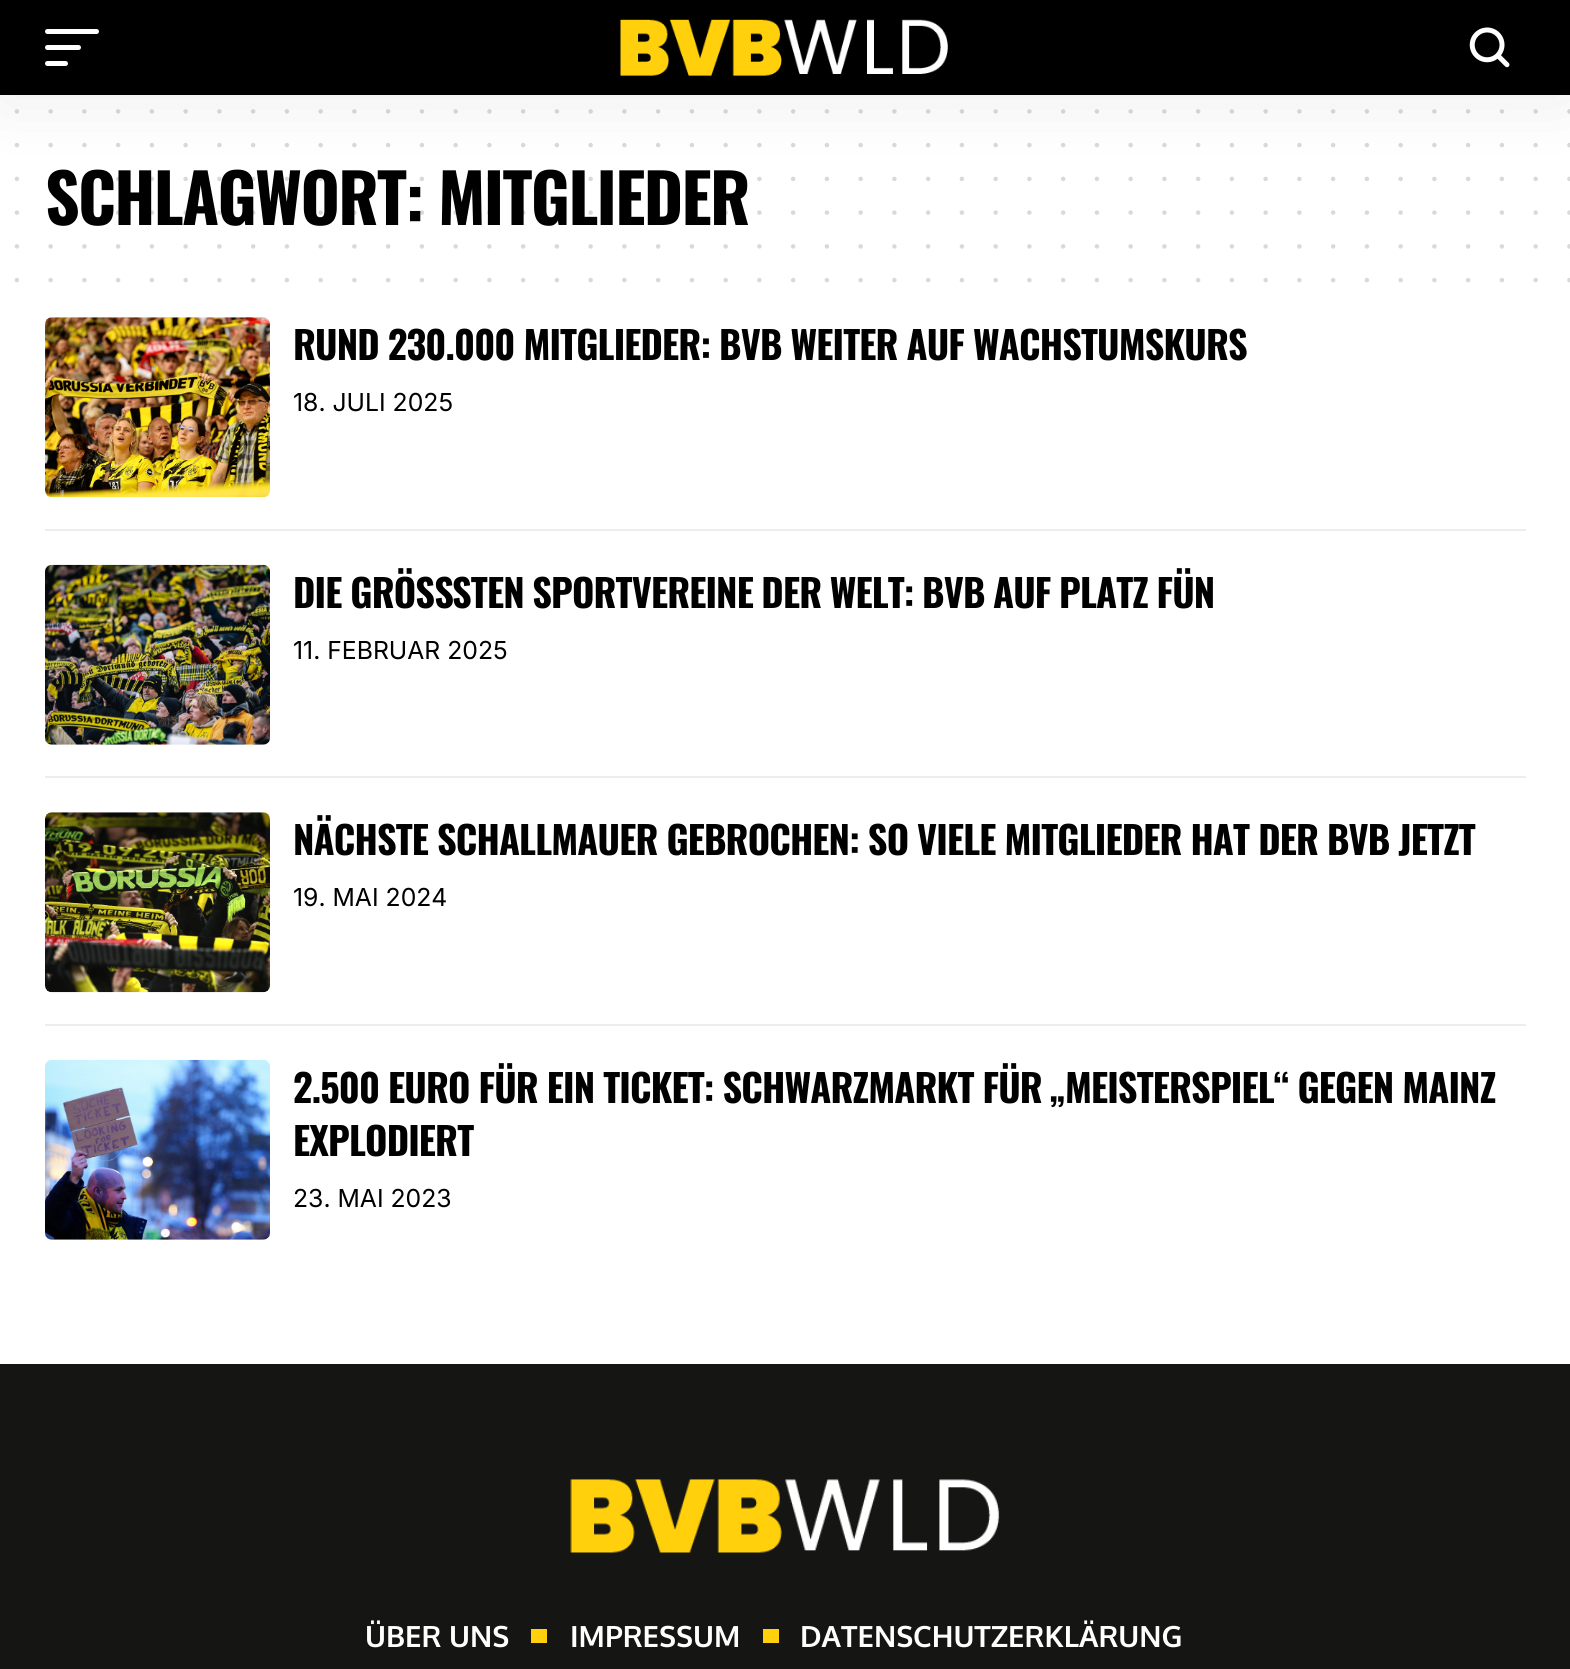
#include <cairo.h>
#include <math.h>
#include <stddef.h>


static void set_color(cairo_t *cr, unsigned color) {
    cairo_set_source_rgb(cr, (color >> 16) / 255.0, (color >> 8 & 255) / 255.0, (color & 255) / 255.0);
}

static void draw_text(cairo_t *cr, double x, double y, const char *s, const char *family, double size, int italic, int bold, unsigned color) {
    cairo_select_font_face(cr, family, italic ? CAIRO_FONT_SLANT_ITALIC : CAIRO_FONT_SLANT_NORMAL,
        bold ? CAIRO_FONT_WEIGHT_BOLD : CAIRO_FONT_WEIGHT_NORMAL);
    cairo_set_font_size(cr, size);
    set_color(cr, color);
    cairo_move_to(cr, x, y);
    cairo_show_text(cr, s);
}

static void draw_spaced(cairo_t *cr, double x, double y, const char *s, double letter, double word) {
    cairo_move_to(cr, x, y);
    while (*s) {
        char ch[5] = {0};
        int n = 0;
        do ch[n++] = *s++; while ((*s & 0xC0) == 0x80);
        cairo_show_text(cr, ch);
        cairo_rel_move_to(cr, letter + word * (*ch == ' '), 0);
    }
}

static void fill_rect(cairo_t *cr, double x, double y, double w, double h, unsigned color) {
    set_color(cr, color);
    cairo_rectangle(cr, x, y, w, h);
    cairo_fill(cr);
}

static void rounded_rect(cairo_t *cr, double x, double y, double w, double h, double r) {
    cairo_new_sub_path(cr);
    cairo_arc(cr, x + w - r, y + h - r, r, 0, M_PI / 2);
    cairo_arc(cr, x + r, y + h - r, r, M_PI / 2, M_PI);
    cairo_arc(cr, x + r, y + r, r, M_PI, 1.5 * M_PI);
    cairo_arc(cr, x + w - r, y + r, r, 1.5 * M_PI, 2 * M_PI);
    cairo_close_path(cr);
}

static void draw_shadow(cairo_t *cr, double x, double y, double w, double h, double r, double blur, double alpha) {
    cairo_push_group_with_content(cr, CAIRO_CONTENT_ALPHA);
    cairo_set_operator(cr, CAIRO_OPERATOR_SOURCE);
    for (int i = 15; i >= -15 && fmin(w, h) + blur * i / 3 > 0; i -= 2) {
        double e = blur * i / 6;
        cairo_set_source_rgba(cr, 0, 0, 0, alpha * erfc((i - 1) / 8.5) / 2);
        rounded_rect(cr, x - e, y - e, w + 2 * e, h + 2 * e, fmax(0, fmin(r + e + blur * .6, fmin(w, h) / 2 + e)));
        cairo_fill(cr);
    }
    cairo_pattern_t *soft = cairo_pop_group(cr);
    cairo_mask(cr, soft);
    cairo_pattern_destroy(soft);
}

static void draw_image(cairo_t *cr, const char *path, double x, double y, double w, double h) {
    cairo_surface_t *image = cairo_image_surface_create_from_png(path);
    cairo_save(cr);
    cairo_set_source_surface(cr, image, x, y);
    cairo_rectangle(cr, x, y, w, h);
    cairo_fill(cr);
    cairo_restore(cr);
    cairo_surface_destroy(image);
}

int main(void) {
    cairo_surface_t *surface = cairo_image_surface_create(CAIRO_FORMAT_RGB24, 1570, 1669);
    cairo_t *cr = cairo_create(surface);
    cairo_font_options_t *options = cairo_font_options_create();
    cairo_font_options_set_hint_metrics(options, CAIRO_HINT_METRICS_OFF);
    cairo_font_options_set_hint_style(options, CAIRO_HINT_STYLE_NONE);
    cairo_set_font_options(cr, options);
    cairo_set_miter_limit(cr, 4);
    set_color(cr, 0xFFFFFF);
    cairo_paint(cr);
    cairo_new_path(cr);
    cairo_move_to(cr, 16.9, 111.4);
    cairo_line_to(cr, 1569.8, 111.4);
    set_color(cr, 0xD9D9D9);
    cairo_set_line_width(cr, 4.5);
    cairo_set_line_cap(cr, CAIRO_LINE_CAP_ROUND);
    cairo_set_dash(cr, (double[]){0, 33.75}, 2, 0);
    cairo_stroke(cr);
    cairo_new_path(cr);
    cairo_move_to(cr, 16.9, 145.1);
    cairo_line_to(cr, 1569.8, 145.1);
    cairo_stroke(cr);
    cairo_select_font_face(cr, "Oswald", CAIRO_FONT_SLANT_NORMAL, CAIRO_FONT_WEIGHT_BOLD);
    cairo_set_font_size(cr, 67.5);
    set_color(cr, 0x000000);
    draw_spaced(cr, 45, 225, "SCHLAGWORT: MITGLIEDER", -1.7, 0);
    cairo_new_path(cr);
    cairo_move_to(cr, 16.9, 178.9);
    cairo_line_to(cr, 1569.8, 178.9);
    cairo_set_source_rgba(cr, 0, 0, 0, 0.15);
    cairo_stroke(cr);
    set_color(cr, 0x000000);
    draw_shadow(cr, 0, 9, 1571, 95, 0, 34, 0.07);
    fill_rect(cr, 0, 0, 1570, 95, 0x000000);
    set_color(cr, 0xFFFFFF);
    rounded_rect(cr, 45, 29, 54, 5, 2.5);
    cairo_fill(cr);
    rounded_rect(cr, 45, 45, 36, 5, 2.5);
    cairo_fill(cr);
    rounded_rect(cr, 45, 61, 23, 5, 2.5);
    cairo_fill(cr);
    draw_image(cr, "assets/img1.png", 620, 19, 328, 57);
    draw_image(cr, "assets/img2.png", 1469, 27, 41, 41);
    cairo_new_path(cr);
    cairo_move_to(cr, 16.9, 212.6);
    cairo_line_to(cr, 1569.8, 212.6);
    cairo_set_source_rgba(cr, 0, 0, 0, 0.15);
    cairo_stroke(cr);
    cairo_new_path(cr);
    cairo_move_to(cr, 16.9, 246.4);
    cairo_line_to(cr, 1569.8, 246.4);
    set_color(cr, 0xD9D9D9);
    cairo_stroke(cr);
    cairo_new_path(cr);
    cairo_move_to(cr, 16.9, 280.1);
    cairo_line_to(cr, 1569.8, 280.1);
    cairo_stroke(cr);
    draw_image(cr, "assets/img3.png", 45, 317, 225, 181);
    cairo_set_font_size(cr, 38.25);
    set_color(cr, 0x000000);
    draw_spaced(cr, 293, 360, "RUND 230.000 MITGLIEDER: BVB WEITER AUF WACHSTUMSKURS", -0.87, 0);
    draw_text(cr, 293, 411, "18. JULI 2025", "Inter", 24.75, 0, 0, 0x000000);
    fill_rect(cr, 45, 529, 1481, 2, 0xEDEDED);
    draw_image(cr, "assets/img4.png", 45, 564, 225, 181);
    cairo_select_font_face(cr, "Oswald", CAIRO_FONT_SLANT_NORMAL, CAIRO_FONT_WEIGHT_BOLD);
    cairo_set_font_size(cr, 38.25);
    set_color(cr, 0x000000);
    draw_spaced(cr, 293, 608, "DIE GRÖSS", -0.87, 0);
    draw_spaced(cr, 452, 608, "STEN SPORTVEREINE DER WELT: BVB AUF PLATZ FÜN", -0.87, -0.5);
    draw_text(cr, 293, 659, "11. FEBRUAR 2025", "Inter", 24.75, 0, 0, 0x000000);
    fill_rect(cr, 45, 776, 1481, 2, 0xEDEDED);
    draw_image(cr, "assets/img5.png", 45, 812, 225, 181);
    cairo_select_font_face(cr, "Oswald", CAIRO_FONT_SLANT_NORMAL, CAIRO_FONT_WEIGHT_BOLD);
    cairo_set_font_size(cr, 38.25);
    set_color(cr, 0x000000);
    draw_spaced(cr, 293, 855, "NÄCHSTE SCHALLMAUER GEBROCHEN: SO VIELE MITGLIEDER HAT DER BVB JETZT", -0.87, 0);
    draw_text(cr, 293, 906, "19. MAI 2024", "Inter", 24.75, 0, 0, 0x000000);
    fill_rect(cr, 45, 1024, 1481, 2, 0xEDEDED);
    draw_image(cr, "assets/img6.png", 45, 1059, 225, 181);
    cairo_select_font_face(cr, "Oswald", CAIRO_FONT_SLANT_NORMAL, CAIRO_FONT_WEIGHT_BOLD);
    cairo_set_font_size(cr, 38.25);
    set_color(cr, 0x000000);
    draw_spaced(cr, 293, 1103, "2.500 EURO FÜR EIN TICKET: SCHWARZMARKT FÜR „MEISTERSPIEL“ GEGEN MAINZ", -0.87, 0);
    draw_spaced(cr, 293, 1156, "EXPLODIERT", -0.87, 0);
    draw_text(cr, 293, 1207, "23. MAI 2023", "Inter", 24.75, 0, 0, 0x000000);
    fill_rect(cr, 0, 1364, 1570, 305, 0x151514);
    draw_image(cr, "assets/img7.png", 570, 1479, 430, 74);
    draw_text(cr, 365, 1647, "ÜBER UNS", "Oxygen", 29.25, 0, 1, 0xFFFFFF);
    fill_rect(cr, 531, 1629, 16, 14, 0xFFD00B);
    draw_text(cr, 570, 1647, "IMPRESSUM", "Oxygen", 29.25, 0, 1, 0xFFFFFF);
    fill_rect(cr, 763, 1629, 16, 14, 0xFFD00B);
    draw_text(cr, 800, 1647, "DATENSCHUTZERKLÄRUNG", "Oxygen", 29.25, 0, 1, 0xFFFFFF);
    cairo_surface_write_to_png(surface, "output.png");
    cairo_font_options_destroy(options);
    cairo_destroy(cr);
    cairo_surface_destroy(surface);
    return 0;
}
